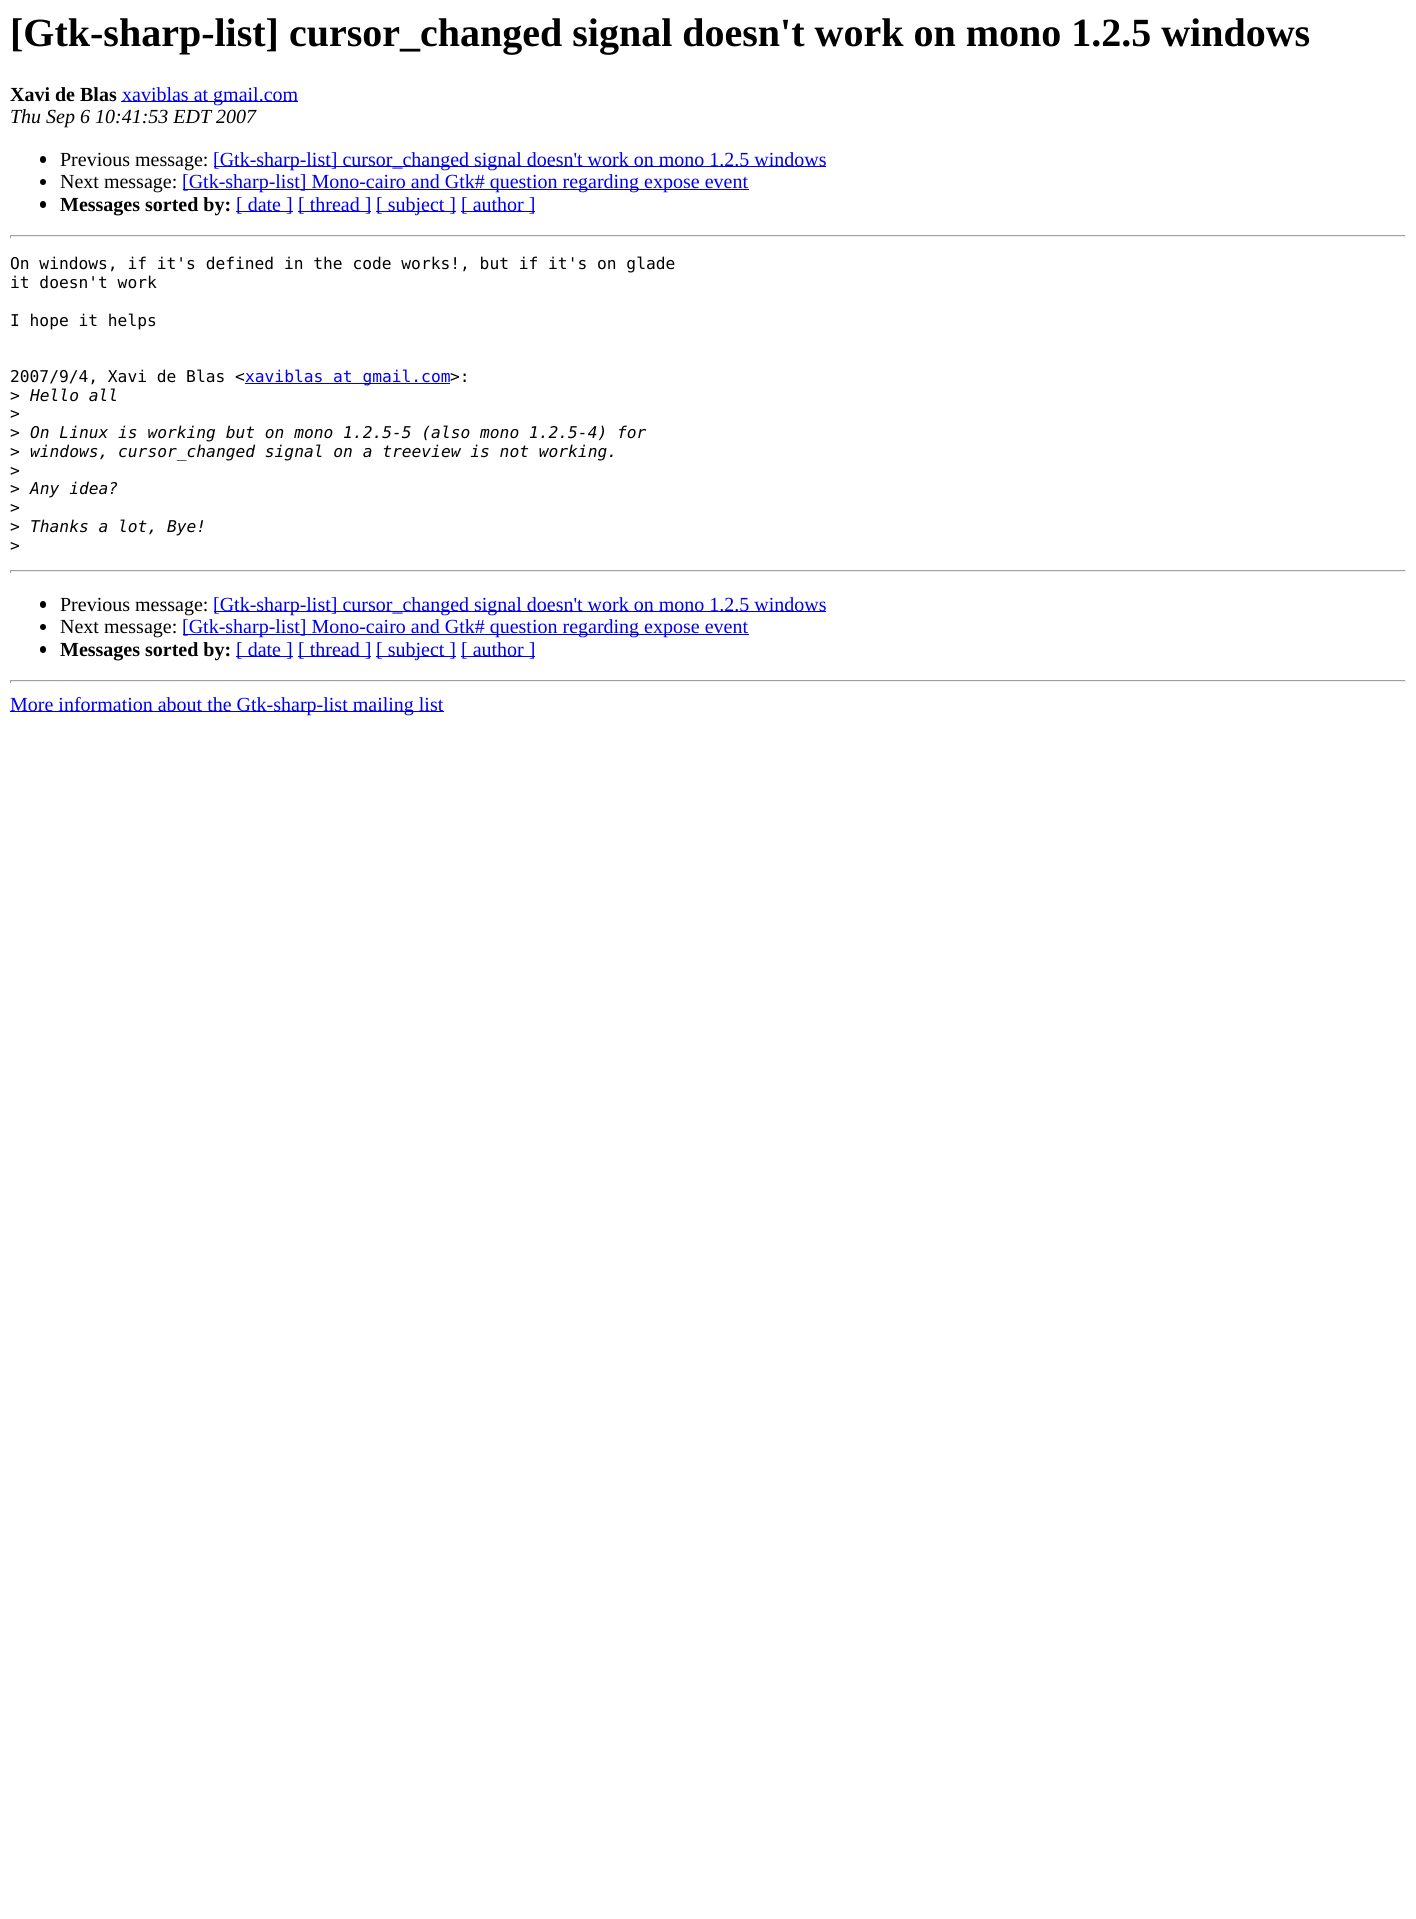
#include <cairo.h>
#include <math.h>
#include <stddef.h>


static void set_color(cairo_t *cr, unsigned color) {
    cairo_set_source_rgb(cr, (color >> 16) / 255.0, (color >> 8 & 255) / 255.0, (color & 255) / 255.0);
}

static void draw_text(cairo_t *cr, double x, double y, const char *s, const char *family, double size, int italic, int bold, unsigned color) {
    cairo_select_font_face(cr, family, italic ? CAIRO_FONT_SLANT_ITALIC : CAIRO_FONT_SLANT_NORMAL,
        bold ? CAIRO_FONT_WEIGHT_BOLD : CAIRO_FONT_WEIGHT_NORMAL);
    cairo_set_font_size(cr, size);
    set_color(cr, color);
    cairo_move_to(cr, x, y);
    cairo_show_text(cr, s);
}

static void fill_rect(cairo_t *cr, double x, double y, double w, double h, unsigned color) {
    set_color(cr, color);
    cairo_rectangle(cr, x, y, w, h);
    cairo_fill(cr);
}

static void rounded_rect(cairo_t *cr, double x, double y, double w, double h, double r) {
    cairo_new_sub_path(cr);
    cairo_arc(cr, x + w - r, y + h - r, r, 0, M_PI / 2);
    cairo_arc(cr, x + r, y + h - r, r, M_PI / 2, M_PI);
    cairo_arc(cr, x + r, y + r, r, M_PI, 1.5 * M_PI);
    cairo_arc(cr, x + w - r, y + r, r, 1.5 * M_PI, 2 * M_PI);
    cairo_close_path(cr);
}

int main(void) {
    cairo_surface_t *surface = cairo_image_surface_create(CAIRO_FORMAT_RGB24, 1416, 1919);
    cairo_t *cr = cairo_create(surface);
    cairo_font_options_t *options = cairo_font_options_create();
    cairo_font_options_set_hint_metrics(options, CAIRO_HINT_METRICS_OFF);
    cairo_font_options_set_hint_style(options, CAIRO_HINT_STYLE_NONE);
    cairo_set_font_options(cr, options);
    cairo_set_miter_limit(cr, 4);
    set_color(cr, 0xFFFFFF);
    cairo_paint(cr);
    draw_text(cr, 10, 46, "[Gtk-sharp-list] cursor_changed signal doesn't work on mono 1.2.5 windows", "Liberation Serif", 40, 0, 1, 0x000000);
    draw_text(cr, 10, 101, "Xavi de Blas", "Liberation Serif", 20, 0, 1, 0x000000);
    fill_rect(cr, 121, 101, 177, 1, 0x0000EE);
    draw_text(cr, 122, 101, "xaviblas at gmail.com", "Liberation Serif", 20, 0, 0, 0x0000EE);
    draw_text(cr, 10, 123, "Thu Sep 6 10:41:53 EDT 2007", "Liberation Serif", 20, 1, 0, 0x000000);
    rounded_rect(cr, 40, 156, 6, 7, 3);
    cairo_fill(cr);
    draw_text(cr, 60, 166, "Previous message:", "Liberation Serif", 20, 0, 0, 0x000000);
    fill_rect(cr, 214, 166, 612, 1, 0x0000EE);
    draw_text(cr, 213, 166, "[Gtk-sharp-list] cursor_changed signal doesn't work on mono 1.2.5 windows", "Liberation Serif", 20, 0, 0, 0x0000EE);
    set_color(cr, 0x000000);
    cairo_new_path(cr);
    cairo_arc(cr, 43, 182, 3, 0, 2 * M_PI);
    cairo_fill(cr);
    draw_text(cr, 60, 188, "Next message:", "Liberation Serif", 20, 0, 0, 0x000000);
    fill_rect(cr, 183, 189, 566, 1, 0x0000EE);
    draw_text(cr, 182, 188, "[Gtk-sharp-list] Mono-cairo and Gtk# question regarding expose event", "Liberation Serif", 20, 0, 0, 0x0000EE);
    set_color(cr, 0x000000);
    rounded_rect(cr, 40, 201, 6, 7, 3);
    cairo_fill(cr);
    draw_text(cr, 60, 211, "Messages sorted by:", "Liberation Serif", 20, 0, 1, 0x000000);
    fill_rect(cr, 236, 211, 57, 1, 0x0000EE);
    draw_text(cr, 236, 211, "[ date ]", "Liberation Serif", 20, 0, 0, 0x0000EE);
    fill_rect(cr, 298, 211, 73, 1, 0x0000EE);
    draw_text(cr, 298, 211, "[ thread ]", "Liberation Serif", 20, 0, 0, 0x0000EE);
    fill_rect(cr, 376, 211, 80, 1, 0x0000EE);
    draw_text(cr, 376, 211, "[ subject ]", "Liberation Serif", 20, 0, 0, 0x0000EE);
    fill_rect(cr, 461, 211, 74, 1, 0x0000EE);
    draw_text(cr, 461, 211, "[ author ]", "Liberation Serif", 20, 0, 0, 0x0000EE);
    fill_rect(cr, 10, 235, 1396, 1, 0x9F9F9F);
    fill_rect(cr, 1405, 235, 1, 3, 0xEEEEEE);
    fill_rect(cr, 10, 236, 1396, 1, 0xEEEEEE);
    fill_rect(cr, 10, 235, 1, 3, 0x9F9F9F);
    draw_text(cr, 10, 269, "On windows, if it's defined in the code works!, but if it's on glade", "DejaVu Sans Mono", 16.25, 0, 0, 0x000000);
    draw_text(cr, 10, 288, "it doesn't work", "DejaVu Sans Mono", 16.25, 0, 0, 0x000000);
    draw_text(cr, 10, 326, "I hope it helps", "DejaVu Sans Mono", 16.25, 0, 0, 0x000000);
    draw_text(cr, 10, 382, "2007/9/4, Xavi de Blas <", "DejaVu Sans Mono", 16.25, 0, 0, 0x000000);
    fill_rect(cr, 245, 383, 205, 1, 0x0000EE);
    draw_text(cr, 245, 382, "xaviblas at gmail.com", "DejaVu Sans Mono", 16.25, 0, 0, 0x0000EE);
    draw_text(cr, 450, 382, ">:", "DejaVu Sans Mono", 16.25, 0, 0, 0x000000);
    draw_text(cr, 10, 401, ">", "DejaVu Sans Mono", 16.25, 0, 0, 0x000000);
    draw_text(cr, 30, 401, "Hello all", "DejaVu Sans Mono", 16.25, 1, 0, 0x000000);
    draw_text(cr, 10, 419, ">", "DejaVu Sans Mono", 16.25, 0, 0, 0x000000);
    draw_text(cr, 10, 438, ">", "DejaVu Sans Mono", 16.25, 0, 0, 0x000000);
    draw_text(cr, 30, 438, "On Linux is working but on mono 1.2.5-5 (also mono 1.2.5-4) for", "DejaVu Sans Mono", 16.25, 1, 0, 0x000000);
    draw_text(cr, 10, 457, ">", "DejaVu Sans Mono", 16.25, 0, 0, 0x000000);
    draw_text(cr, 30, 457, "windows, cursor_changed signal on a treeview is not working.", "DejaVu Sans Mono", 16.25, 1, 0, 0x000000);
    draw_text(cr, 10, 476, ">", "DejaVu Sans Mono", 16.25, 0, 0, 0x000000);
    draw_text(cr, 10, 494, ">", "DejaVu Sans Mono", 16.25, 0, 0, 0x000000);
    draw_text(cr, 30, 494, "Any idea?", "DejaVu Sans Mono", 16.25, 1, 0, 0x000000);
    draw_text(cr, 10, 513, ">", "DejaVu Sans Mono", 16.25, 0, 0, 0x000000);
    draw_text(cr, 10, 532, ">", "DejaVu Sans Mono", 16.25, 0, 0, 0x000000);
    draw_text(cr, 30, 532, "Thanks a lot, Bye!", "DejaVu Sans Mono", 16.25, 1, 0, 0x000000);
    draw_text(cr, 10, 551, ">", "DejaVu Sans Mono", 16.25, 0, 0, 0x000000);
    fill_rect(cr, 10, 570, 1396, 1, 0x9F9F9F);
    fill_rect(cr, 1405, 570, 1, 3, 0xEEEEEE);
    fill_rect(cr, 10, 571, 1396, 1, 0xEEEEEE);
    fill_rect(cr, 10, 570, 1, 3, 0x9F9F9F);
    set_color(cr, 0x000000);
    rounded_rect(cr, 40, 601, 6, 7, 3);
    cairo_fill(cr);
    draw_text(cr, 60, 611, "Previous message:", "Liberation Serif", 20, 0, 0, 0x000000);
    fill_rect(cr, 214, 611, 612, 1, 0x0000EE);
    draw_text(cr, 213, 611, "[Gtk-sharp-list] cursor_changed signal doesn't work on mono 1.2.5 windows", "Liberation Serif", 20, 0, 0, 0x0000EE);
    set_color(cr, 0x000000);
    cairo_new_path(cr);
    cairo_arc(cr, 43, 627, 3, 0, 2 * M_PI);
    cairo_fill(cr);
    draw_text(cr, 60, 633, "Next message:", "Liberation Serif", 20, 0, 0, 0x000000);
    fill_rect(cr, 183, 634, 566, 1, 0x0000EE);
    draw_text(cr, 182, 633, "[Gtk-sharp-list] Mono-cairo and Gtk# question regarding expose event", "Liberation Serif", 20, 0, 0, 0x0000EE);
    set_color(cr, 0x000000);
    rounded_rect(cr, 40, 646, 6, 7, 3);
    cairo_fill(cr);
    draw_text(cr, 60, 656, "Messages sorted by:", "Liberation Serif", 20, 0, 1, 0x000000);
    fill_rect(cr, 236, 656, 57, 1, 0x0000EE);
    draw_text(cr, 236, 656, "[ date ]", "Liberation Serif", 20, 0, 0, 0x0000EE);
    fill_rect(cr, 298, 656, 73, 1, 0x0000EE);
    draw_text(cr, 298, 656, "[ thread ]", "Liberation Serif", 20, 0, 0, 0x0000EE);
    fill_rect(cr, 376, 656, 80, 1, 0x0000EE);
    draw_text(cr, 376, 656, "[ subject ]", "Liberation Serif", 20, 0, 0, 0x0000EE);
    fill_rect(cr, 461, 656, 74, 1, 0x0000EE);
    draw_text(cr, 461, 656, "[ author ]", "Liberation Serif", 20, 0, 0, 0x0000EE);
    fill_rect(cr, 10, 680, 1396, 1, 0x9F9F9F);
    fill_rect(cr, 1405, 680, 1, 3, 0xEEEEEE);
    fill_rect(cr, 10, 681, 1396, 1, 0xEEEEEE);
    fill_rect(cr, 10, 680, 1, 3, 0x9F9F9F);
    fill_rect(cr, 10, 711, 434, 1, 0x0000EE);
    draw_text(cr, 10, 711, "More information about the Gtk-sharp-list mailing list", "Liberation Serif", 20, 0, 0, 0x0000EE);
    cairo_surface_write_to_png(surface, "output.png");
    cairo_font_options_destroy(options);
    cairo_destroy(cr);
    cairo_surface_destroy(surface);
    return 0;
}
